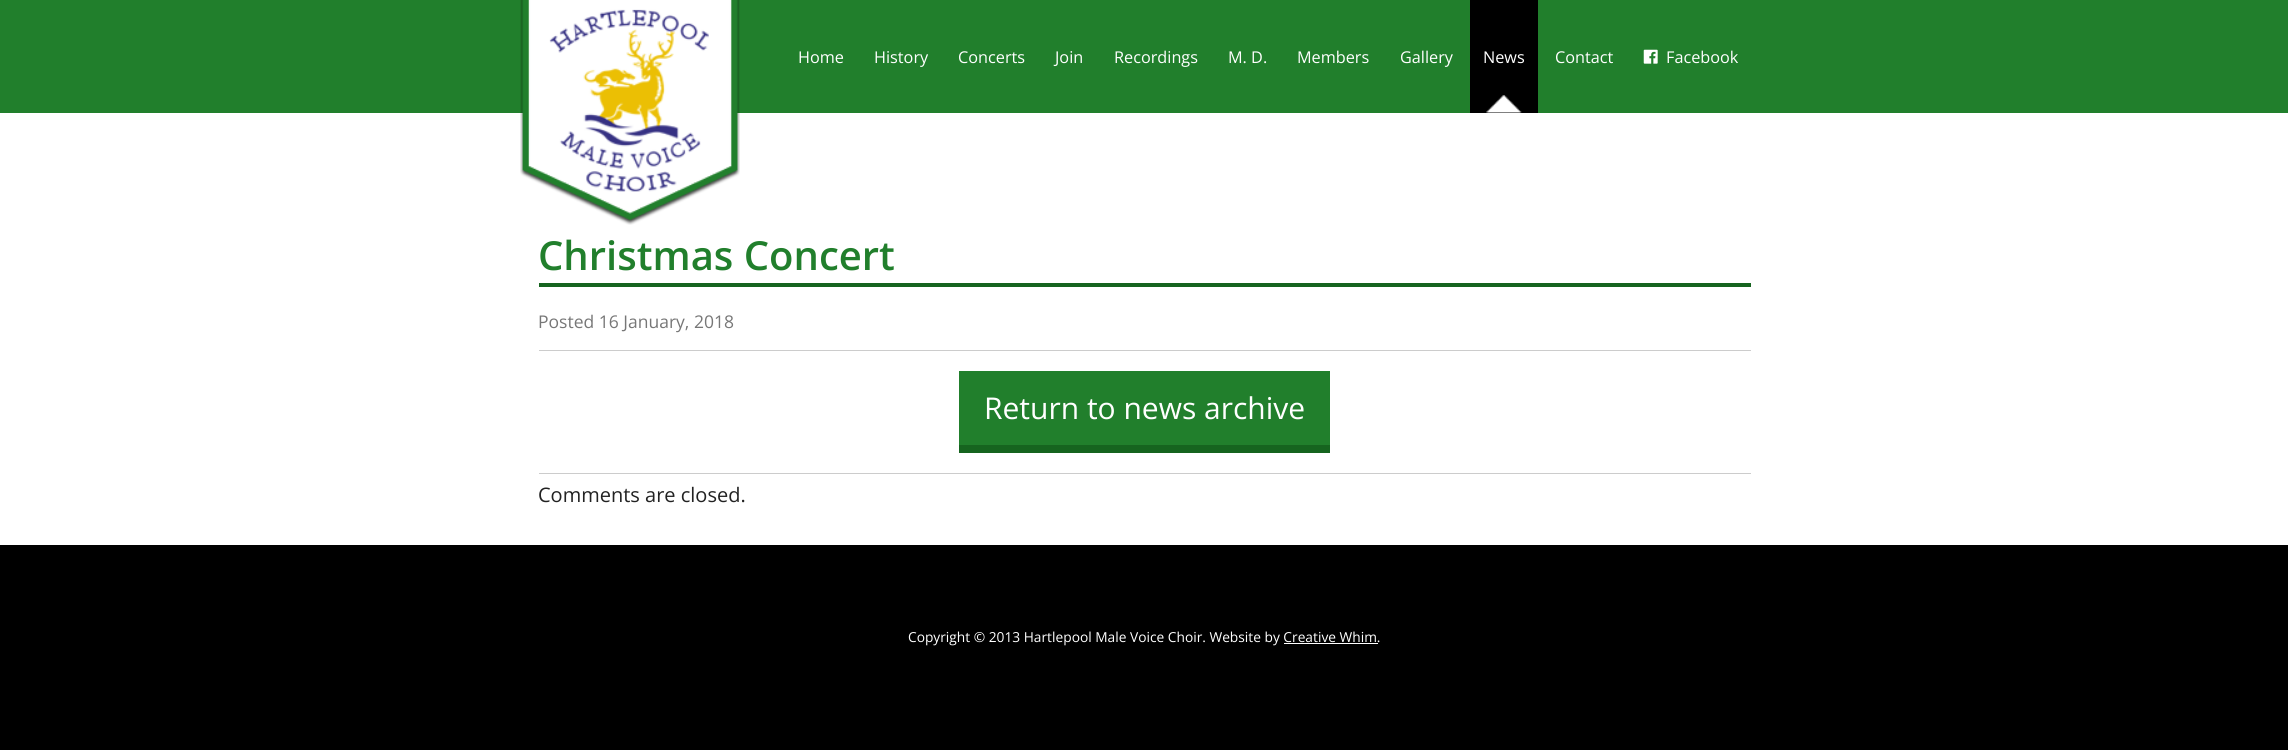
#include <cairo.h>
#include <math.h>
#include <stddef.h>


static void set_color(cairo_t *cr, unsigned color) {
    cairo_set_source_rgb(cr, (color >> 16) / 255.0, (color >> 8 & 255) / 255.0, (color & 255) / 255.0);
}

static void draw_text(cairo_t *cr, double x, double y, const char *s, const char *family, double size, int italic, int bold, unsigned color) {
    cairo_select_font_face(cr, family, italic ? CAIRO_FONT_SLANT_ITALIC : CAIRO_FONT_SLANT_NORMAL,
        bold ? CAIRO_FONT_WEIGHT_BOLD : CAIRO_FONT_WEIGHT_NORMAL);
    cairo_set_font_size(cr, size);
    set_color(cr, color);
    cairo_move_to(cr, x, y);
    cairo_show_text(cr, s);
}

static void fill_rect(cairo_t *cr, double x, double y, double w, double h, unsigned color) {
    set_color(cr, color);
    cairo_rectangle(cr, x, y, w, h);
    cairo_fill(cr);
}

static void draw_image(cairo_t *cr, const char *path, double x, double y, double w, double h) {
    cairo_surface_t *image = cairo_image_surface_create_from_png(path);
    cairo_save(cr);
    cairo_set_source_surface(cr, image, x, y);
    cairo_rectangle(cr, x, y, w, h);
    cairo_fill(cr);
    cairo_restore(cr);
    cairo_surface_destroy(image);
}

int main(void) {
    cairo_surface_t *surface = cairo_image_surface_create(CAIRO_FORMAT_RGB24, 2288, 750);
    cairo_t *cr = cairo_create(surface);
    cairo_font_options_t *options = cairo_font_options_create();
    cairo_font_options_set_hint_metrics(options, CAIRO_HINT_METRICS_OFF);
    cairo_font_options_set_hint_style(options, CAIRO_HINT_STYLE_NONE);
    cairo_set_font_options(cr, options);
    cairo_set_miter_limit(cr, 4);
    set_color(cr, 0xFFFFFF);
    cairo_paint(cr);
    fill_rect(cr, 0, 0, 2288, 113, 0x217F2C);
    draw_image(cr, "assets/img1.png", 520, 0, 220, 225);
    draw_text(cr, 798, 63, "Home", "Open Sans", 16.25, 0, 0, 0xFFFFFF);
    draw_text(cr, 874, 63, "History", "Open Sans", 16.25, 0, 0, 0xFFFFFF);
    draw_text(cr, 958, 63, "Concerts", "Open Sans", 16.25, 0, 0, 0xFFFFFF);
    draw_text(cr, 1055, 63, "Join", "Open Sans", 16.25, 0, 0, 0xFFFFFF);
    draw_text(cr, 1114, 63, "Recordings", "Open Sans", 16.25, 0, 0, 0xFFFFFF);
    draw_text(cr, 1228, 63, "M. D.", "Open Sans", 16.25, 0, 0, 0xFFFFFF);
    draw_text(cr, 1297, 63, "Members", "Open Sans", 16.25, 0, 0, 0xFFFFFF);
    draw_text(cr, 1400, 63, "Gallery", "Open Sans", 16.25, 0, 0, 0xFFFFFF);
    fill_rect(cr, 1470, 0, 68, 113, 0x000000);
    draw_image(cr, "assets/img2.png", 1486, 95, 36, 18);
    draw_text(cr, 1483, 63, "News", "Open Sans", 16.25, 0, 0, 0xFFFFFF);
    draw_text(cr, 1555, 63, "Contact", "Open Sans", 16.25, 0, 0, 0xFFFFFF);
    draw_image(cr, "assets/img3.png", 1643, 49, 15, 15);
    draw_text(cr, 1666, 63, "Facebook", "Open Sans", 16.25, 0, 0, 0xFFFFFF);
    fill_rect(cr, 539, 283, 1212, 4, 0x16641F);
    draw_text(cr, 538, 270, "Christmas Concert", "Open Sans SemiBold", 40, 0, 0, 0x217F2C);
    draw_text(cr, 538, 328, "Posted 16 January, 2018", "Open Sans", 17.5, 0, 0, 0x777777);
    fill_rect(cr, 539, 350, 1212, 1, 0xCCCCCC);
    fill_rect(cr, 959, 371, 371, 74, 0x217F2C);
    fill_rect(cr, 959, 445, 371, 8, 0x16641F);
    draw_text(cr, 984, 419, "Return to news archive", "Open Sans", 30, 0, 0, 0xFFFFFF);
    fill_rect(cr, 539, 473, 1212, 1, 0xCCCCCC);
    draw_text(cr, 538, 502, "Comments are closed.", "Open Sans", 20, 0, 0, 0x222222);
    fill_rect(cr, 0, 545, 2288, 205, 0x000000);
    draw_text(cr, 908, 642, "Copyright © 2013 Hartlepool Male Voice Choir. Website by Creative Whim.", "Open Sans", 13.75, 0, 0, 0xFFFFFF);
    fill_rect(cr, 1284, 643, 94, 1, 0xFFFFFF);
    cairo_surface_write_to_png(surface, "output.png");
    cairo_font_options_destroy(options);
    cairo_destroy(cr);
    cairo_surface_destroy(surface);
    return 0;
}
